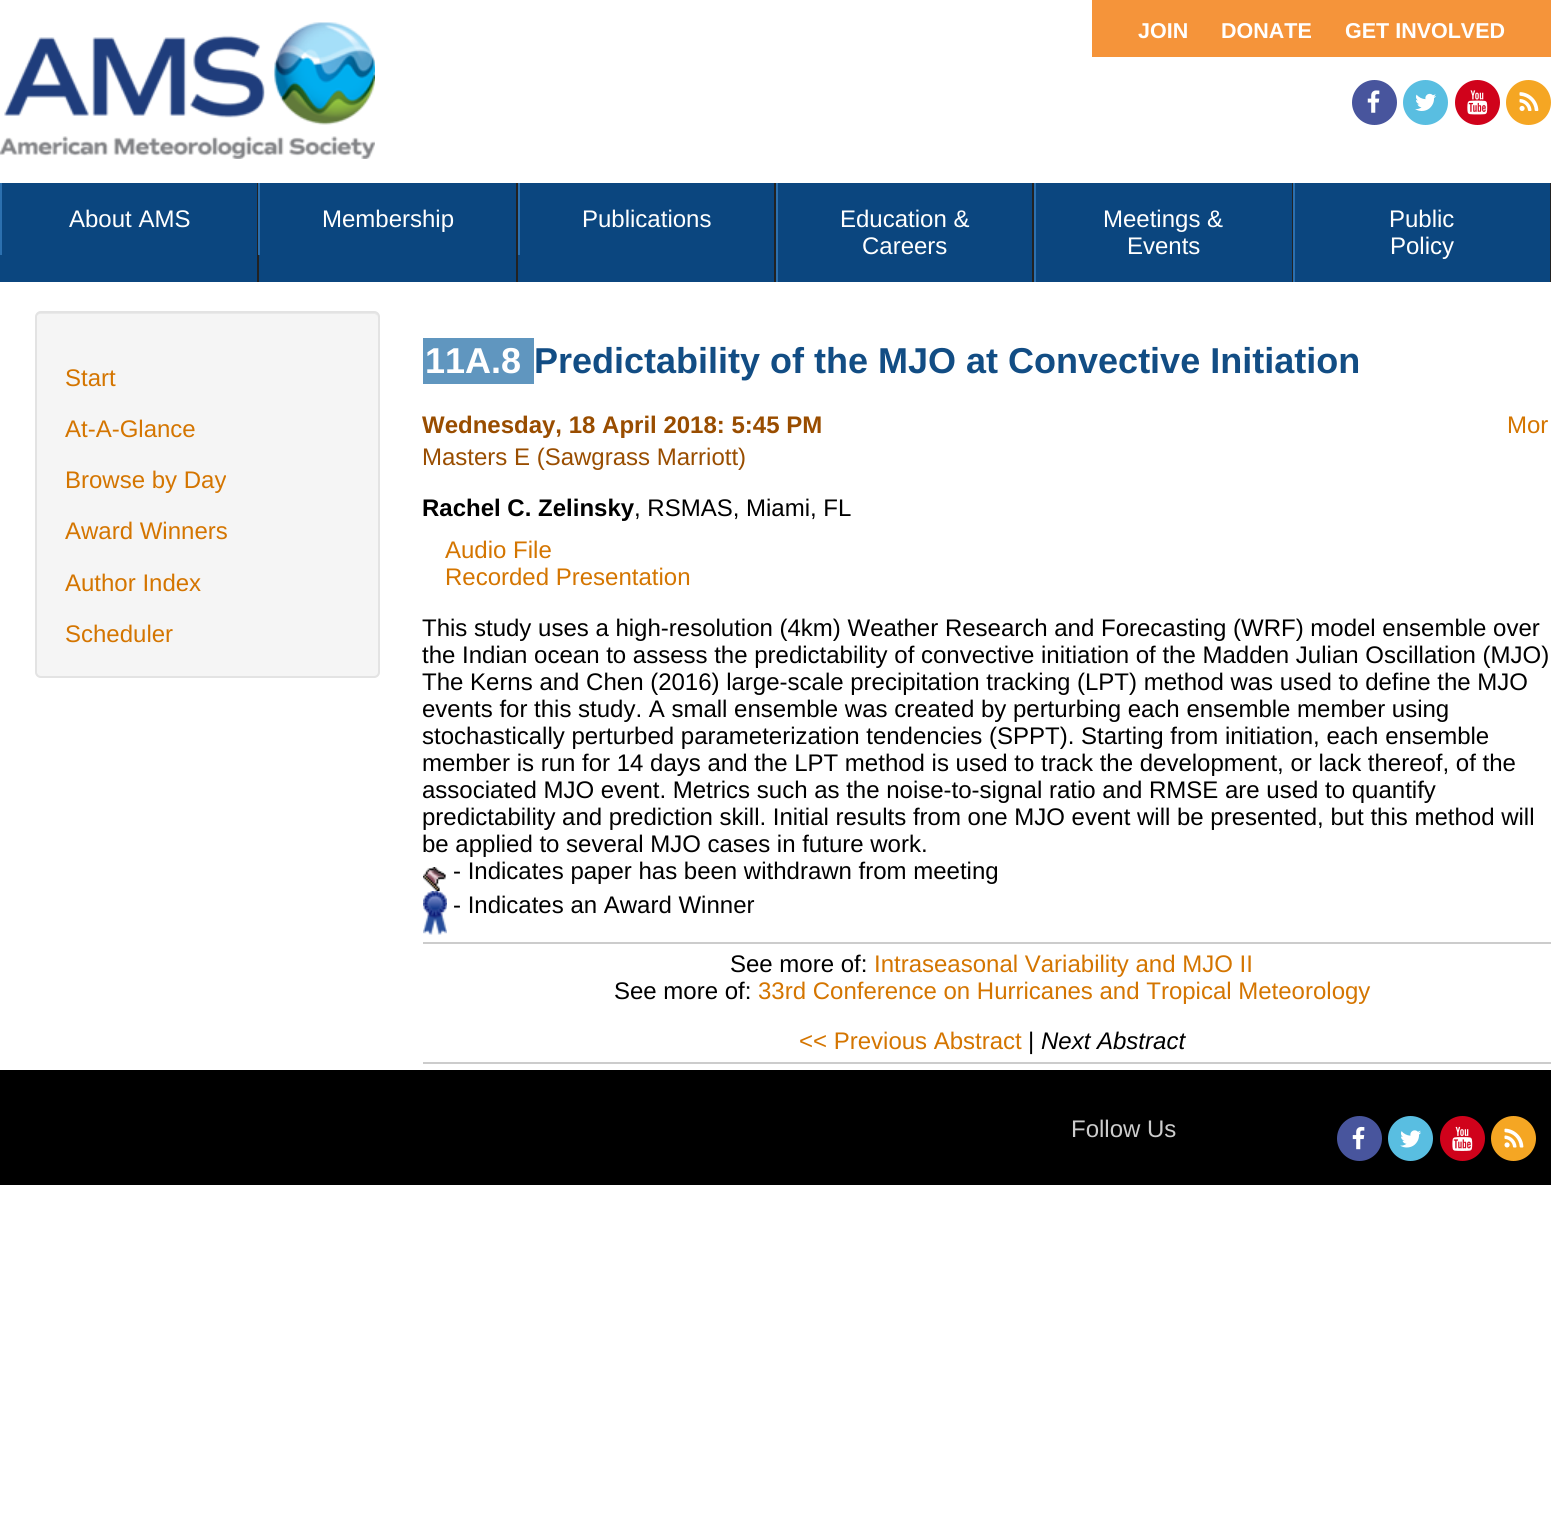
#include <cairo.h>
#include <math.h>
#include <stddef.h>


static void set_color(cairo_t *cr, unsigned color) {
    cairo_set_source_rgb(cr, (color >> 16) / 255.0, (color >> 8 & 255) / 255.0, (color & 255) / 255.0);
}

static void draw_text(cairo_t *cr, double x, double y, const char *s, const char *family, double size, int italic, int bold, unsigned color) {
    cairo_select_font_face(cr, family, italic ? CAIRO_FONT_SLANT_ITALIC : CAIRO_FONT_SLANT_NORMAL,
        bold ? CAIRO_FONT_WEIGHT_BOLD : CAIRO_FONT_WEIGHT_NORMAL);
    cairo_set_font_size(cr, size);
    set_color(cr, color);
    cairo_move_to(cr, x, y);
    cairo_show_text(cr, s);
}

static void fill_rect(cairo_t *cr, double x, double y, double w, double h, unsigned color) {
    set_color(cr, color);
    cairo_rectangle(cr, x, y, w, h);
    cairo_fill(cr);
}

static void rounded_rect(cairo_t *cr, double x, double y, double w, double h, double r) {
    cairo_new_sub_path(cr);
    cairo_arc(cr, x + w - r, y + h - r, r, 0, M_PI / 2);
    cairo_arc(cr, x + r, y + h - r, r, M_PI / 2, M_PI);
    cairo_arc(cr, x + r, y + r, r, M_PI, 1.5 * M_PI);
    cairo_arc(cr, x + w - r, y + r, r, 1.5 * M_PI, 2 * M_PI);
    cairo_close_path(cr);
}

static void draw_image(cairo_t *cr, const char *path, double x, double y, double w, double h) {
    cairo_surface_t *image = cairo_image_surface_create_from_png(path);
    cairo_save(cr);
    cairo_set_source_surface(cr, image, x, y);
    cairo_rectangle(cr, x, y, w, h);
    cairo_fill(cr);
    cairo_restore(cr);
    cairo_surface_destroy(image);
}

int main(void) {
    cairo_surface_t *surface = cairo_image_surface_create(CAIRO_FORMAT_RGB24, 1551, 1535);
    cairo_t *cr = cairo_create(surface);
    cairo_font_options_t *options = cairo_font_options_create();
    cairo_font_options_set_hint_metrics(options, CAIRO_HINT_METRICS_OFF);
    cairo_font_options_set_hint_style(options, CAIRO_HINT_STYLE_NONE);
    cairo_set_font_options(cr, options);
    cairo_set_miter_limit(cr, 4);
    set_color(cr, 0xFFFFFF);
    cairo_paint(cr);
    draw_image(cr, "assets/img1.png", 0, 22, 375, 137);
    fill_rect(cr, 1092, 0, 459, 57, 0xF5943A);
    draw_text(cr, 1138, 38, "JOIN", "Liberation Sans", 21.5, 0, 1, 0xFFFFFF);
    draw_text(cr, 1221, 38, "DONATE", "Liberation Sans", 21.5, 0, 1, 0xFFFFFF);
    draw_text(cr, 1345, 38, "GET INVOLVED", "Liberation Sans", 21.5, 0, 1, 0xFFFFFF);
    set_color(cr, 0x48559D);
    cairo_new_path(cr);
    cairo_arc(cr, 1374.5, 102.5, 22.5, 0, 2 * M_PI);
    cairo_fill(cr);
    draw_image(cr, "assets/img2.png", 1367, 90, 13, 23);
    set_color(cr, 0x59BEE1);
    cairo_arc(cr, 1425.5, 102.5, 22.5, 0, 2 * M_PI);
    cairo_fill(cr);
    draw_image(cr, "assets/img3.png", 1415, 93, 21, 18);
    set_color(cr, 0xD0021B);
    cairo_arc(cr, 1477.5, 102.5, 22.5, 0, 2 * M_PI);
    cairo_fill(cr);
    draw_image(cr, "assets/img4.png", 1467, 90, 21, 25);
    set_color(cr, 0xF5A623);
    cairo_arc(cr, 1528.5, 102.5, 22.5, 0, 2 * M_PI);
    cairo_fill(cr);
    draw_image(cr, "assets/img5.png", 1519, 92, 20, 19);
    fill_rect(cr, 0, 183, 1550, 99, 0x0B467F);
    fill_rect(cr, 257, 183, 2, 99, 0x222222);
    fill_rect(cr, 0, 183, 2, 72, 0x2C70AF);
    draw_text(cr, 69, 227, "About AMS", "Liberation Sans", 24, 0, 0, 0xFFFFFF);
    fill_rect(cr, 516, 183, 2, 99, 0x222222);
    fill_rect(cr, 258, 183, 2, 72, 0x2C70AF);
    draw_text(cr, 322, 227, "Membership", "Liberation Sans", 24, 0, 0, 0xFFFFFF);
    fill_rect(cr, 774, 183, 2, 99, 0x222222);
    fill_rect(cr, 518, 183, 2, 72, 0x2C70AF);
    draw_text(cr, 582, 227, "Publications", "Liberation Sans", 24, 0, 0, 0xFFFFFF);
    fill_rect(cr, 1032, 183, 2, 99, 0x222222);
    fill_rect(cr, 776, 183, 2, 99, 0x2C70AF);
    draw_text(cr, 840, 227, "Education &", "Liberation Sans", 24, 0, 0, 0xFFFFFF);
    draw_text(cr, 862, 254, "Careers", "Liberation Sans", 24, 0, 0, 0xFFFFFF);
    fill_rect(cr, 1292, 183, 1, 99, 0x222222);
    fill_rect(cr, 1034, 183, 2, 99, 0x2C70AF);
    draw_text(cr, 1103, 227, "Meetings &", "Liberation Sans", 24, 0, 0, 0xFFFFFF);
    draw_text(cr, 1127, 254, "Events", "Liberation Sans", 24, 0, 0, 0xFFFFFF);
    fill_rect(cr, 1550, 183, 1, 99, 0x222222);
    fill_rect(cr, 1293, 183, 2, 99, 0x2C70AF);
    draw_text(cr, 1389, 227, "Public", "Liberation Sans", 24, 0, 0, 0xFFFFFF);
    draw_text(cr, 1390, 254, "Policy", "Liberation Sans", 24, 0, 0, 0xFFFFFF);
    set_color(cr, 0xF5F5F5);
    rounded_rect(cr, 35, 311, 345, 367, 6);
    cairo_fill(cr);
    set_color(cr, 0xE9E9E9);
    cairo_new_path(cr);
    cairo_move_to(cr, 40, 314);
    cairo_line_to(cr, 374, 314);
    cairo_curve_to(cr, 376, 314, 378, 316, 378, 318);
    cairo_curve_to(cr, 378, 315, 376, 312, 373, 312);
    cairo_line_to(cr, 41, 312);
    cairo_curve_to(cr, 38, 312, 36, 315, 36, 318);
    cairo_curve_to(cr, 36, 316, 38, 314, 40, 314);
    cairo_close_path(cr);
    cairo_fill(cr);
    rounded_rect(cr, 36, 312, 343, 365, 5);
    set_color(cr, 0xE3E3E3);
    cairo_stroke(cr);
    draw_text(cr, 65, 386, "Start", "Liberation Sans", 24, 0, 0, 0xD47500);
    draw_text(cr, 65, 437, "At-A-Glance", "Liberation Sans", 24, 0, 0, 0xD47500);
    draw_text(cr, 65, 488, "Browse by Day", "Liberation Sans", 24, 0, 0, 0xD47500);
    draw_text(cr, 65, 539, "Award Winners", "Liberation Sans", 24, 0, 0, 0xD47500);
    draw_text(cr, 65, 591, "Author Index", "Liberation Sans", 24, 0, 0, 0xD47500);
    draw_text(cr, 65, 642, "Scheduler", "Liberation Sans", 24, 0, 0, 0xD47500);
    fill_rect(cr, 423, 338, 111, 46, 0x6096BF);
    draw_text(cr, 425, 373, "11A.8", "Liberation Sans", 36, 0, 1, 0xFFFFFF);
    draw_text(cr, 534, 373, "Predictability of the MJO at Convective Initiation", "Liberation Sans", 36, 0, 1, 0x124D84);
    draw_text(cr, 422, 433, "Wednesday, 18 April 2018: 5:45 PM", "Liberation Sans", 24, 0, 1, 0x994D00);
    draw_text(cr, 1507, 433, "Mor", "Liberation Sans", 24, 0, 0, 0xD47500);
    draw_text(cr, 422, 465, "Masters E (Sawgrass Marriott)", "Liberation Sans", 24, 0, 0, 0x994D00);
    draw_text(cr, 422, 516, "Rachel C. Zelinsky", "Liberation Sans", 24, 0, 1, 0x000000);
    draw_text(cr, 634, 516, ", RSMAS, Miami, FL", "Liberation Sans", 24, 0, 0, 0x000000);
    draw_text(cr, 445, 558, "Audio File", "Liberation Sans", 24, 0, 0, 0xD47500);
    draw_text(cr, 445, 585, "Recorded Presentation", "Liberation Sans", 24, 0, 0, 0xD47500);
    draw_text(cr, 422, 636, "This study uses a high-resolution (4km) Weather Research and Forecasting (WRF) model ensemble over", "Liberation Sans", 24, 0, 0, 0x000000);
    draw_text(cr, 422, 663, "the Indian ocean to assess the predictability of convective initiation of the Madden Julian Oscillation (MJO)", "Liberation Sans", 24, 0, 0, 0x000000);
    draw_text(cr, 422, 690, "The Kerns and Chen (2016) large-scale precipitation tracking (LPT) method was used to define the MJO", "Liberation Sans", 24, 0, 0, 0x000000);
    draw_text(cr, 422, 717, "events for this study. A small ensemble was created by perturbing each ensemble member using", "Liberation Sans", 24, 0, 0, 0x000000);
    draw_text(cr, 422, 744, "stochastically perturbed parameterization tendencies (SPPT). Starting from initiation, each ensemble", "Liberation Sans", 24, 0, 0, 0x000000);
    draw_text(cr, 422, 771, "member is run for 14 days and the LPT method is used to track the development, or lack thereof, of the", "Liberation Sans", 24, 0, 0, 0x000000);
    draw_text(cr, 422, 798, "associated MJO event. Metrics such as the noise-to-signal ratio and RMSE are used to quantify", "Liberation Sans", 24, 0, 0, 0x000000);
    draw_text(cr, 422, 825, "predictability and prediction skill. Initial results from one MJO event will be presented, but this method will", "Liberation Sans", 24, 0, 0, 0x000000);
    draw_text(cr, 422, 852, "be applied to several MJO cases in future work.", "Liberation Sans", 24, 0, 0, 0x000000);
    draw_image(cr, "assets/img6.png", 423, 867, 23, 24);
    draw_text(cr, 453, 879, "- Indicates paper has been withdrawn from meeting", "Liberation Sans", 24, 0, 0, 0x000000);
    draw_image(cr, "assets/img7.png", 423, 891, 24, 44);
    draw_text(cr, 453, 913, "- Indicates an Award Winner", "Liberation Sans", 24, 0, 0, 0x000000);
    fill_rect(cr, 423, 942, 1128, 2, 0xCCCCCC);
    draw_text(cr, 730, 972, "See more of:", "Liberation Sans", 24, 0, 0, 0x000000);
    draw_text(cr, 874, 972, "Intraseasonal Variability and MJO II", "Liberation Sans", 24, 0, 0, 0xD47500);
    draw_text(cr, 614, 999, "See more of:", "Liberation Sans", 24, 0, 0, 0x000000);
    draw_text(cr, 758, 999, "33rd Conference on Hurricanes and Tropical Meteorology", "Liberation Sans", 24, 0, 0, 0xD47500);
    fill_rect(cr, 423, 1062, 1128, 2, 0xCCCCCC);
    draw_text(cr, 799, 1049, "<< Previous Abstract", "Liberation Sans", 24, 0, 0, 0xD47500);
    draw_text(cr, 1028, 1049, "|", "Liberation Sans", 24, 0, 0, 0x000000);
    draw_text(cr, 1041, 1049, "Next Abstract", "Liberation Sans", 24, 1, 0, 0x000000);
    fill_rect(cr, 0, 1070, 1551, 115, 0x000000);
    draw_text(cr, 1071, 1137, "Follow Us", "Liberation Sans", 24, 0, 0, 0xCCCCCC);
    set_color(cr, 0x48559D);
    cairo_new_path(cr);
    cairo_arc(cr, 1359.5, 1138.5, 22.5, 0, 2 * M_PI);
    cairo_fill(cr);
    draw_image(cr, "assets/img8.png", 1352, 1126, 13, 24);
    set_color(cr, 0x59BEE1);
    cairo_arc(cr, 1410.5, 1138.5, 22.5, 0, 2 * M_PI);
    cairo_fill(cr);
    draw_image(cr, "assets/img9.png", 1400, 1130, 21, 18);
    set_color(cr, 0xD0021B);
    cairo_arc(cr, 1462.5, 1138.5, 22.5, 0, 2 * M_PI);
    cairo_fill(cr);
    draw_image(cr, "assets/img10.png", 1452, 1126, 21, 25);
    set_color(cr, 0xF5A623);
    cairo_arc(cr, 1513.5, 1138.5, 22.5, 0, 2 * M_PI);
    cairo_fill(cr);
    draw_image(cr, "assets/img11.png", 1504, 1128, 20, 20);
    cairo_surface_write_to_png(surface, "output.png");
    cairo_font_options_destroy(options);
    cairo_destroy(cr);
    cairo_surface_destroy(surface);
    return 0;
}
